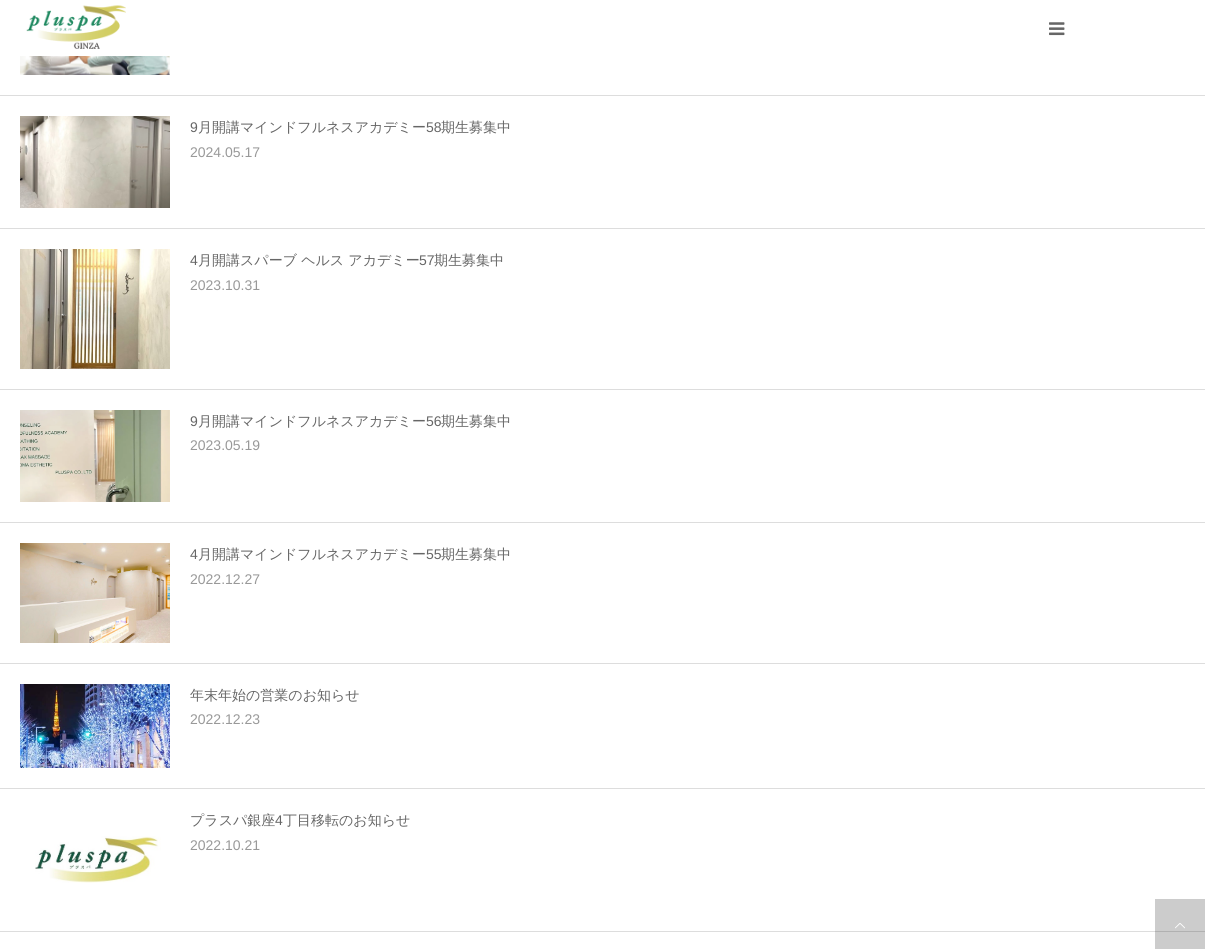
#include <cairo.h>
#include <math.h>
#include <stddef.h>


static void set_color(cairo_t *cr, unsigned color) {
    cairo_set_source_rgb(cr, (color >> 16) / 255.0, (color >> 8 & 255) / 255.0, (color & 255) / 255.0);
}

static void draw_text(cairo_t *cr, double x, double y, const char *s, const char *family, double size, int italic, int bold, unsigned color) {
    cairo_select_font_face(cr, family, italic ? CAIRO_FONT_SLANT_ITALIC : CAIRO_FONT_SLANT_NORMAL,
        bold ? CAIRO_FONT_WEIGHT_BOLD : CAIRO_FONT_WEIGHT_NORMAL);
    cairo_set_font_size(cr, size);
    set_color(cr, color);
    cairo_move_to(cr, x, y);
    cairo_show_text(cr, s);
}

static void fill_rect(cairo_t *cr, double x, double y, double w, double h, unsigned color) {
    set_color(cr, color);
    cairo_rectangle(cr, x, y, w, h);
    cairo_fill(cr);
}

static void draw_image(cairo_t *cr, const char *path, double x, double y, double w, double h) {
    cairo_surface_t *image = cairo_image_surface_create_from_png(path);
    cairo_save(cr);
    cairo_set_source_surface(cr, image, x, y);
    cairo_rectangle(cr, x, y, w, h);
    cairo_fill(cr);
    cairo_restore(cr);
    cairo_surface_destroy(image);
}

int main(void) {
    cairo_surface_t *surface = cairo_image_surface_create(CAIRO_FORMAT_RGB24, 1205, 949);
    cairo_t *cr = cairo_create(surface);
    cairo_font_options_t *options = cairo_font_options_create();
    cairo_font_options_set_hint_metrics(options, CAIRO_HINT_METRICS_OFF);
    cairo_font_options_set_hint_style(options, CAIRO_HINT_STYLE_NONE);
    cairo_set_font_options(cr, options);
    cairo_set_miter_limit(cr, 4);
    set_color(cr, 0xFFFFFF);
    cairo_paint(cr);
    draw_image(cr, "assets/img1.png", 26, 5, 100, 44);
    draw_image(cr, "assets/img2.png", 1049, 22, 16, 14);
    fill_rect(cr, 0, 95, 1205, 1, 0xDDDDDD);
    draw_image(cr, "assets/img3.png", 20, 56, 150, 19);
    fill_rect(cr, 0, 228, 1205, 1, 0xDDDDDD);
    draw_image(cr, "assets/img4.png", 20, 116, 150, 92);
    draw_text(cr, 190, 132, "9", "Liberation Sans", 14, 0, 0, 0x666666);
    draw_text(cr, 198, 132, "月開講マインドフルネスアカデミー", "WenQuanYi Zen Hei Medium", 14, 0, 0, 0x666666);
    draw_text(cr, 426, 132, "58", "Liberation Sans", 14, 0, 0, 0x666666);
    draw_text(cr, 441, 132, "期生募集中", "WenQuanYi Zen Hei Medium", 14, 0, 0, 0x666666);
    draw_text(cr, 190, 157, "2024.05.17", "Liberation Sans", 14, 0, 0, 0x999999);
    fill_rect(cr, 0, 389, 1205, 1, 0xDDDDDD);
    draw_image(cr, "assets/img5.png", 20, 249, 150, 120);
    draw_text(cr, 190, 265, "4", "Liberation Sans", 14, 0, 0, 0x666666);
    draw_text(cr, 198, 265, "月開講スパーブ ヘルス アカデミー", "WenQuanYi Zen Hei Medium", 14, 0, 0, 0x666666);
    draw_text(cr, 419, 265, "57", "Liberation Sans", 14, 0, 0, 0x666666);
    draw_text(cr, 434, 265, "期生募集中", "WenQuanYi Zen Hei Medium", 14, 0, 0, 0x666666);
    draw_text(cr, 190, 290, "2023.10.31", "Liberation Sans", 14, 0, 0, 0x999999);
    fill_rect(cr, 0, 522, 1205, 1, 0xDDDDDD);
    draw_image(cr, "assets/img6.png", 20, 410, 150, 92);
    draw_text(cr, 190, 426, "9", "Liberation Sans", 14, 0, 0, 0x666666);
    draw_text(cr, 198, 426, "月開講マインドフルネスアカデミー", "WenQuanYi Zen Hei Medium", 14, 0, 0, 0x666666);
    draw_text(cr, 426, 426, "56", "Liberation Sans", 14, 0, 0, 0x666666);
    draw_text(cr, 441, 426, "期生募集中", "WenQuanYi Zen Hei Medium", 14, 0, 0, 0x666666);
    draw_text(cr, 190, 450, "2023.05.19", "Liberation Sans", 14, 0, 0, 0x999999);
    fill_rect(cr, 0, 663, 1205, 1, 0xDDDDDD);
    draw_image(cr, "assets/img7.png", 20, 543, 150, 100);
    draw_text(cr, 190, 559, "4", "Liberation Sans", 14, 0, 0, 0x666666);
    draw_text(cr, 198, 559, "月開講マインドフルネスアカデミー", "WenQuanYi Zen Hei Medium", 14, 0, 0, 0x666666);
    draw_text(cr, 426, 559, "55", "Liberation Sans", 14, 0, 0, 0x666666);
    draw_text(cr, 441, 559, "期生募集中", "WenQuanYi Zen Hei Medium", 14, 0, 0, 0x666666);
    draw_text(cr, 190, 584, "2022.12.27", "Liberation Sans", 14, 0, 0, 0x999999);
    fill_rect(cr, 0, 788, 1205, 1, 0xDDDDDD);
    draw_image(cr, "assets/img8.png", 20, 684, 150, 84);
    draw_text(cr, 190, 700, "年末年始の営業のお知らせ", "WenQuanYi Zen Hei Medium", 14, 0, 0, 0x666666);
    draw_text(cr, 190, 724, "2022.12.23", "Liberation Sans", 14, 0, 0, 0x999999);
    fill_rect(cr, 0, 931, 1155, 1, 0xDDDDDD);
    fill_rect(cr, 1155, 899, 50, 50, 0xCCCCCC);
    fill_rect(cr, 1155, 931, 50, 1, 0xB1B1B1);
    draw_text(cr, 190, 825, "プラスパ銀座", "WenQuanYi Zen Hei Medium", 14, 0, 0, 0x666666);
    draw_text(cr, 275, 825, "4", "Liberation Sans", 14, 0, 0, 0x666666);
    draw_text(cr, 283, 825, "丁目移転のお知らせ", "WenQuanYi Zen Hei Medium", 14, 0, 0, 0x666666);
    draw_text(cr, 190, 850, "2022.10.21", "Liberation Sans", 14, 0, 0, 0x999999);
    draw_image(cr, "assets/img9.png", 35, 836, 126, 47);
    draw_image(cr, "assets/img10.png", 1175, 923, 10, 6);
    cairo_surface_write_to_png(surface, "output.png");
    cairo_font_options_destroy(options);
    cairo_destroy(cr);
    cairo_surface_destroy(surface);
    return 0;
}
